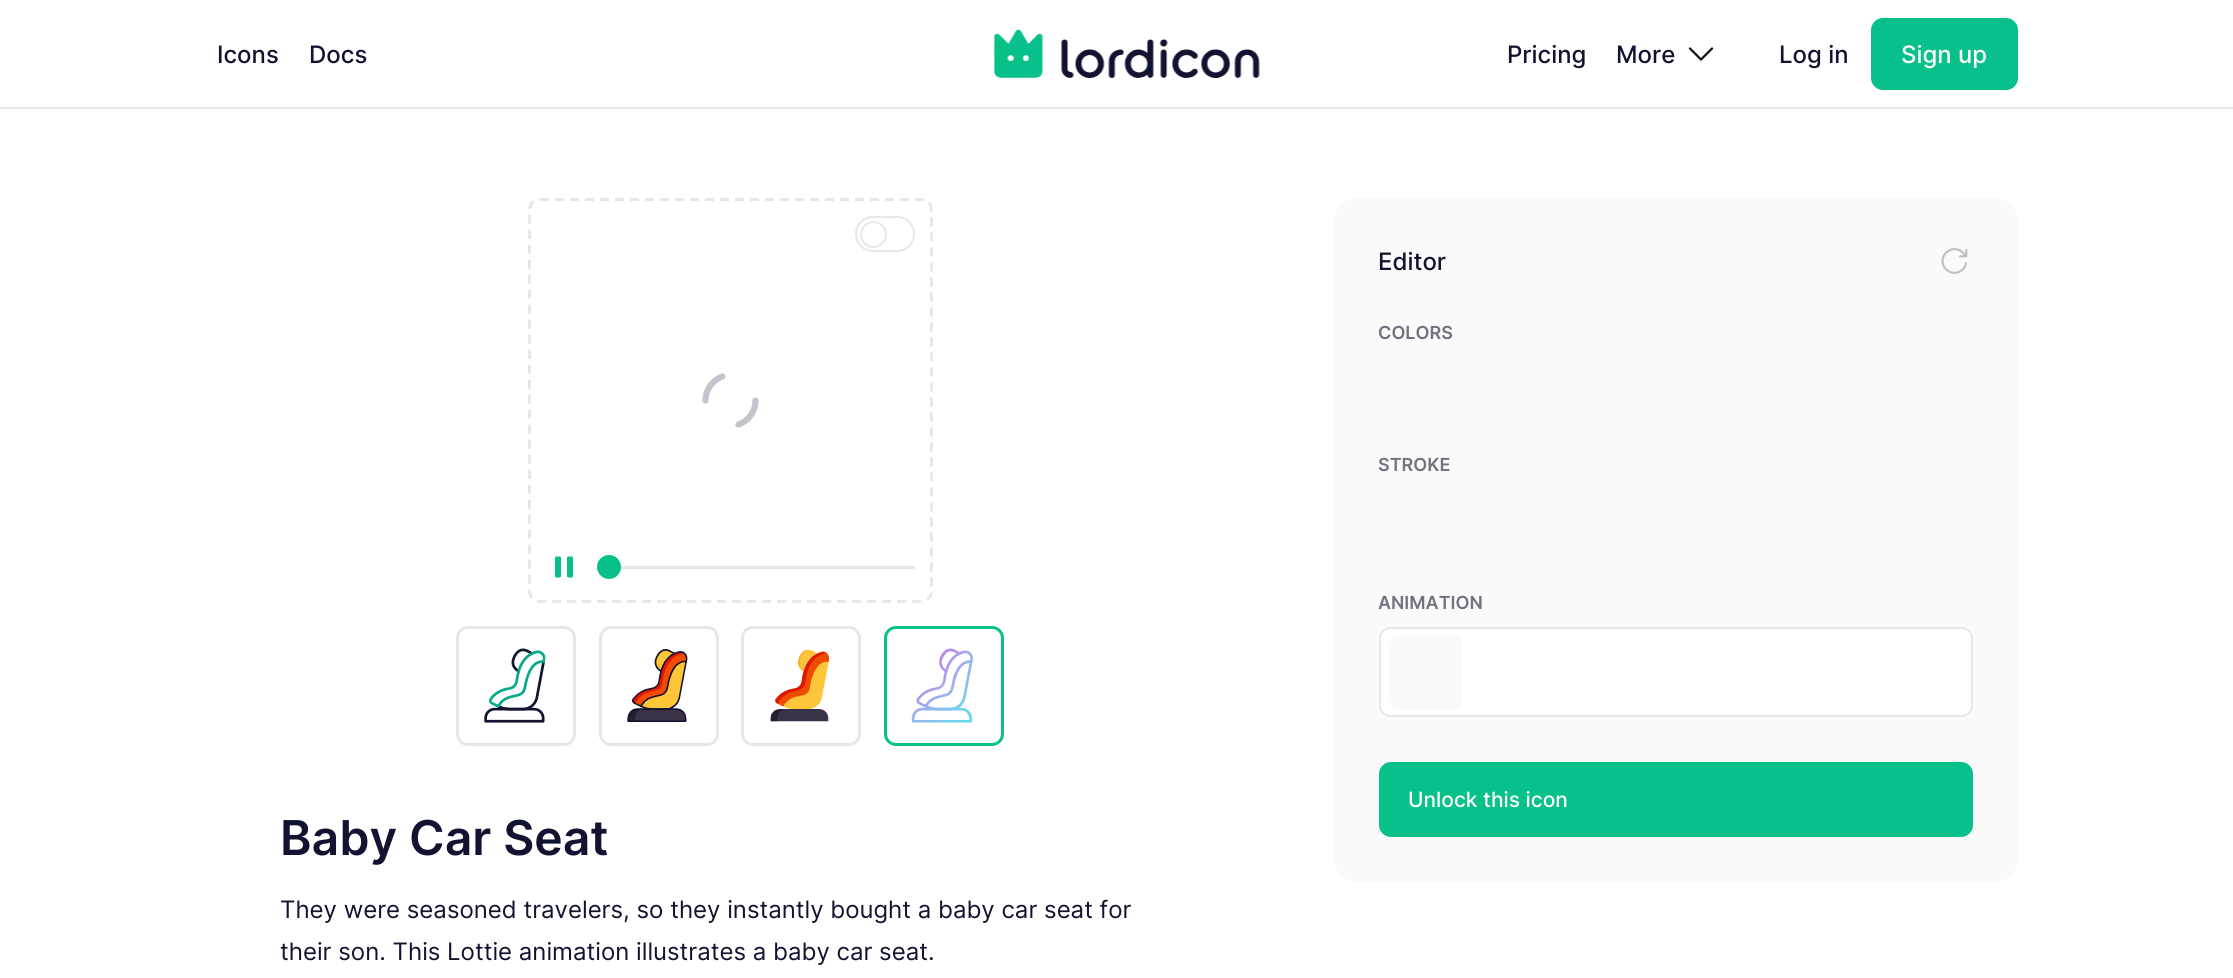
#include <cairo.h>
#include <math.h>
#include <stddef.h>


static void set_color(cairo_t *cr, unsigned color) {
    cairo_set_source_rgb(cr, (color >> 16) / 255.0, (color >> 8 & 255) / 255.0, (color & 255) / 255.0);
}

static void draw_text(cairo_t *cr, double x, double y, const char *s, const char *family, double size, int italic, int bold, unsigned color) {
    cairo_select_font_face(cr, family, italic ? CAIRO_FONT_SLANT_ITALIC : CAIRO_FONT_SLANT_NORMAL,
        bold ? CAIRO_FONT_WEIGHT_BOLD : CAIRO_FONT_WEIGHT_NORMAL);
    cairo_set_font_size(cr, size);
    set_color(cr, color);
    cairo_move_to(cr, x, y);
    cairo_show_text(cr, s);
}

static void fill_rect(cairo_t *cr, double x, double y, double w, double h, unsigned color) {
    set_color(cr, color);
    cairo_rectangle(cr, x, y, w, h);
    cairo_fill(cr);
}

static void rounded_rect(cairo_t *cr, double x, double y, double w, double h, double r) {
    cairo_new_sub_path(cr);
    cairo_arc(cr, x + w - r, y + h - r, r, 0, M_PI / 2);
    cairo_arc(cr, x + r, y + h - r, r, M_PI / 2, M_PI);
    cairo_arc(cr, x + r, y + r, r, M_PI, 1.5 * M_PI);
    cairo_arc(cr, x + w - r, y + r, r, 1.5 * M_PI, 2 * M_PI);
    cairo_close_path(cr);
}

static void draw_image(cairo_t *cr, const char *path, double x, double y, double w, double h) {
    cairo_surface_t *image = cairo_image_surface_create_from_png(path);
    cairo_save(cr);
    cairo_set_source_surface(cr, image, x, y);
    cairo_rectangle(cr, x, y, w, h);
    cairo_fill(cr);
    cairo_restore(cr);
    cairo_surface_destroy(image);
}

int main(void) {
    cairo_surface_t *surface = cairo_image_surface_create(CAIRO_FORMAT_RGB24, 2233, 978);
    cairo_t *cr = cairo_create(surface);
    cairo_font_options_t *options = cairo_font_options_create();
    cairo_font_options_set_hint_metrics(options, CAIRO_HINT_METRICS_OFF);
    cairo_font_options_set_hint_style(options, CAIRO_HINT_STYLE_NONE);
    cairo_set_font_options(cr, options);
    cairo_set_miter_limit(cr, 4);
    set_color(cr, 0xFFFFFF);
    cairo_paint(cr);
    fill_rect(cr, 0, 107, 2233, 2, 0xE7E7EA);
    draw_text(cr, 217, 63, "Icons", "Inter Medium", 24, 0, 0, 0x121330);
    draw_text(cr, 309, 63, "Docs", "Inter Medium", 24, 0, 0, 0x121330);
    draw_image(cr, "assets/img1.png", 993, 29, 267, 49);
    draw_text(cr, 1507, 63, "Pricing", "Inter Medium", 24, 0, 0, 0x121330);
    draw_text(cr, 1616, 63, "More", "Inter Medium", 24, 0, 0, 0x121330);
    draw_image(cr, "assets/img2.png", 1688, 47, 26, 14);
    draw_text(cr, 1779, 63, "Log in", "Inter Medium", 24, 0, 0, 0x121330);
    set_color(cr, 0x08C18A);
    rounded_rect(cr, 1871, 18, 147, 72, 12);
    cairo_fill(cr);
    draw_text(cr, 1901, 63, "Sign up", "Inter Medium", 24, 0, 0, 0xFFFFFF);
    set_color(cr, 0xFAFAFB);
    rounded_rect(cr, 1334, 198, 684, 684, 24);
    cairo_fill(cr);
    draw_text(cr, 1378, 270, "Editor", "Inter Medium", 24, 0, 0, 0x121330);
    draw_image(cr, "assets/img3.png", 1941, 248, 27, 26);
    draw_text(cr, 1378, 339, "COLORS", "Inter SemiBold", 18, 0, 0, 0x717181);
    draw_text(cr, 1378, 471, "STROKE", "Inter SemiBold", 18, 0, 0, 0x717181);
    draw_text(cr, 1378, 609, "ANIMATION", "Inter SemiBold", 18, 0, 0, 0x717181);
    set_color(cr, 0xFFFFFF);
    rounded_rect(cr, 1380, 628, 592, 88, 11);
    cairo_fill_preserve(cr);
    set_color(cr, 0xE7E7EA);
    cairo_stroke(cr);
    set_color(cr, 0xFAFAFB);
    rounded_rect(cr, 1388, 635, 75, 75, 12);
    cairo_fill(cr);
    set_color(cr, 0x08C18A);
    rounded_rect(cr, 1379, 762, 594, 75, 12);
    cairo_fill(cr);
    draw_text(cr, 1408, 807, "Unlock this icon", "Inter Medium", 21, 0, 0, 0xFFFFFF);
    cairo_new_path(cr);
    cairo_move_to(cr, 540, 199.5);
    cairo_line_to(cr, 921, 199.5);
    cairo_curve_to(cr, 927, 199.5, 931.5, 204, 931.5, 210);
    cairo_line_to(cr, 931.5, 591);
    cairo_curve_to(cr, 931.5, 597, 927, 601.5, 921, 601.5);
    cairo_line_to(cr, 540, 601.5);
    cairo_curve_to(cr, 534, 601.5, 529.5, 597, 529.5, 591);
    cairo_line_to(cr, 529.5, 210);
    cairo_curve_to(cr, 529.5, 204, 534, 199.5, 540, 199.5);
    cairo_close_path(cr);
    set_color(cr, 0xE7E7EA);
    cairo_set_line_width(cr, 3);
    cairo_set_dash(cr, (double[]){9, 6}, 2, 0);
    cairo_stroke(cr);
    rounded_rect(cr, 856, 217, 58, 34, 17);
    cairo_set_line_width(cr, 2);
    cairo_set_dash(cr, NULL, 0, 0);
    cairo_stroke(cr);
    cairo_arc(cr, 873.5, 234.5, 12.5, 0, 2 * M_PI);
    cairo_stroke(cr);
    cairo_new_path(cr);
    cairo_move_to(cr, 705.5, 400.5);
    cairo_curve_to(cr, 705.5, 389.5, 712.5, 380, 722.5, 376.5);
    cairo_move_to(cr, 755.5, 400.5);
    cairo_curve_to(cr, 755.5, 411.5, 748.5, 421, 738.5, 424.5);
    set_color(cr, 0xC4C4CC);
    cairo_set_line_width(cr, 6.2);
    cairo_set_line_cap(cr, CAIRO_LINE_CAP_ROUND);
    cairo_set_line_join(cr, CAIRO_LINE_JOIN_ROUND);
    cairo_stroke(cr);
    draw_image(cr, "assets/img4.png", 555, 556, 18, 22);
    fill_rect(cr, 597, 566, 318, 3, 0xE7E7EA);
    set_color(cr, 0x08C18A);
    cairo_arc(cr, 609, 567, 12, 0, 2 * M_PI);
    cairo_fill(cr);
    rounded_rect(cr, 457.5, 627.5, 117, 117, 10.5);
    set_color(cr, 0xE7E7EA);
    cairo_set_line_width(cr, 3);
    cairo_set_line_cap(cr, CAIRO_LINE_CAP_BUTT);
    cairo_set_line_join(cr, CAIRO_LINE_JOIN_MITER);
    cairo_stroke(cr);
    draw_image(cr, "assets/img5.png", 484, 648, 62, 75);
    rounded_rect(cr, 600.5, 627.5, 117, 117, 10.5);
    cairo_stroke(cr);
    draw_image(cr, "assets/img6.png", 627, 649, 61, 73);
    rounded_rect(cr, 742.5, 627.5, 117, 117, 10.5);
    cairo_stroke(cr);
    draw_image(cr, "assets/img7.png", 770, 649, 60, 73);
    rounded_rect(cr, 885.5, 627.5, 117, 117, 10.5);
    set_color(cr, 0x08C18A);
    cairo_stroke(cr);
    draw_image(cr, "assets/img8.png", 911, 648, 62, 75);
    draw_text(cr, 280, 855, "Baby Car Seat", "Inter SemiBold", 48, 0, 0, 0x121330);
    draw_text(cr, 280, 918, "They were seasoned travelers, so they instantly bought a baby car seat for", "Inter", 24, 0, 0, 0x121330);
    draw_text(cr, 280, 960, "their son. This Lottie animation illustrates a baby car seat.", "Inter", 24, 0, 0, 0x121330);
    cairo_surface_write_to_png(surface, "output.png");
    cairo_font_options_destroy(options);
    cairo_destroy(cr);
    cairo_surface_destroy(surface);
    return 0;
}
